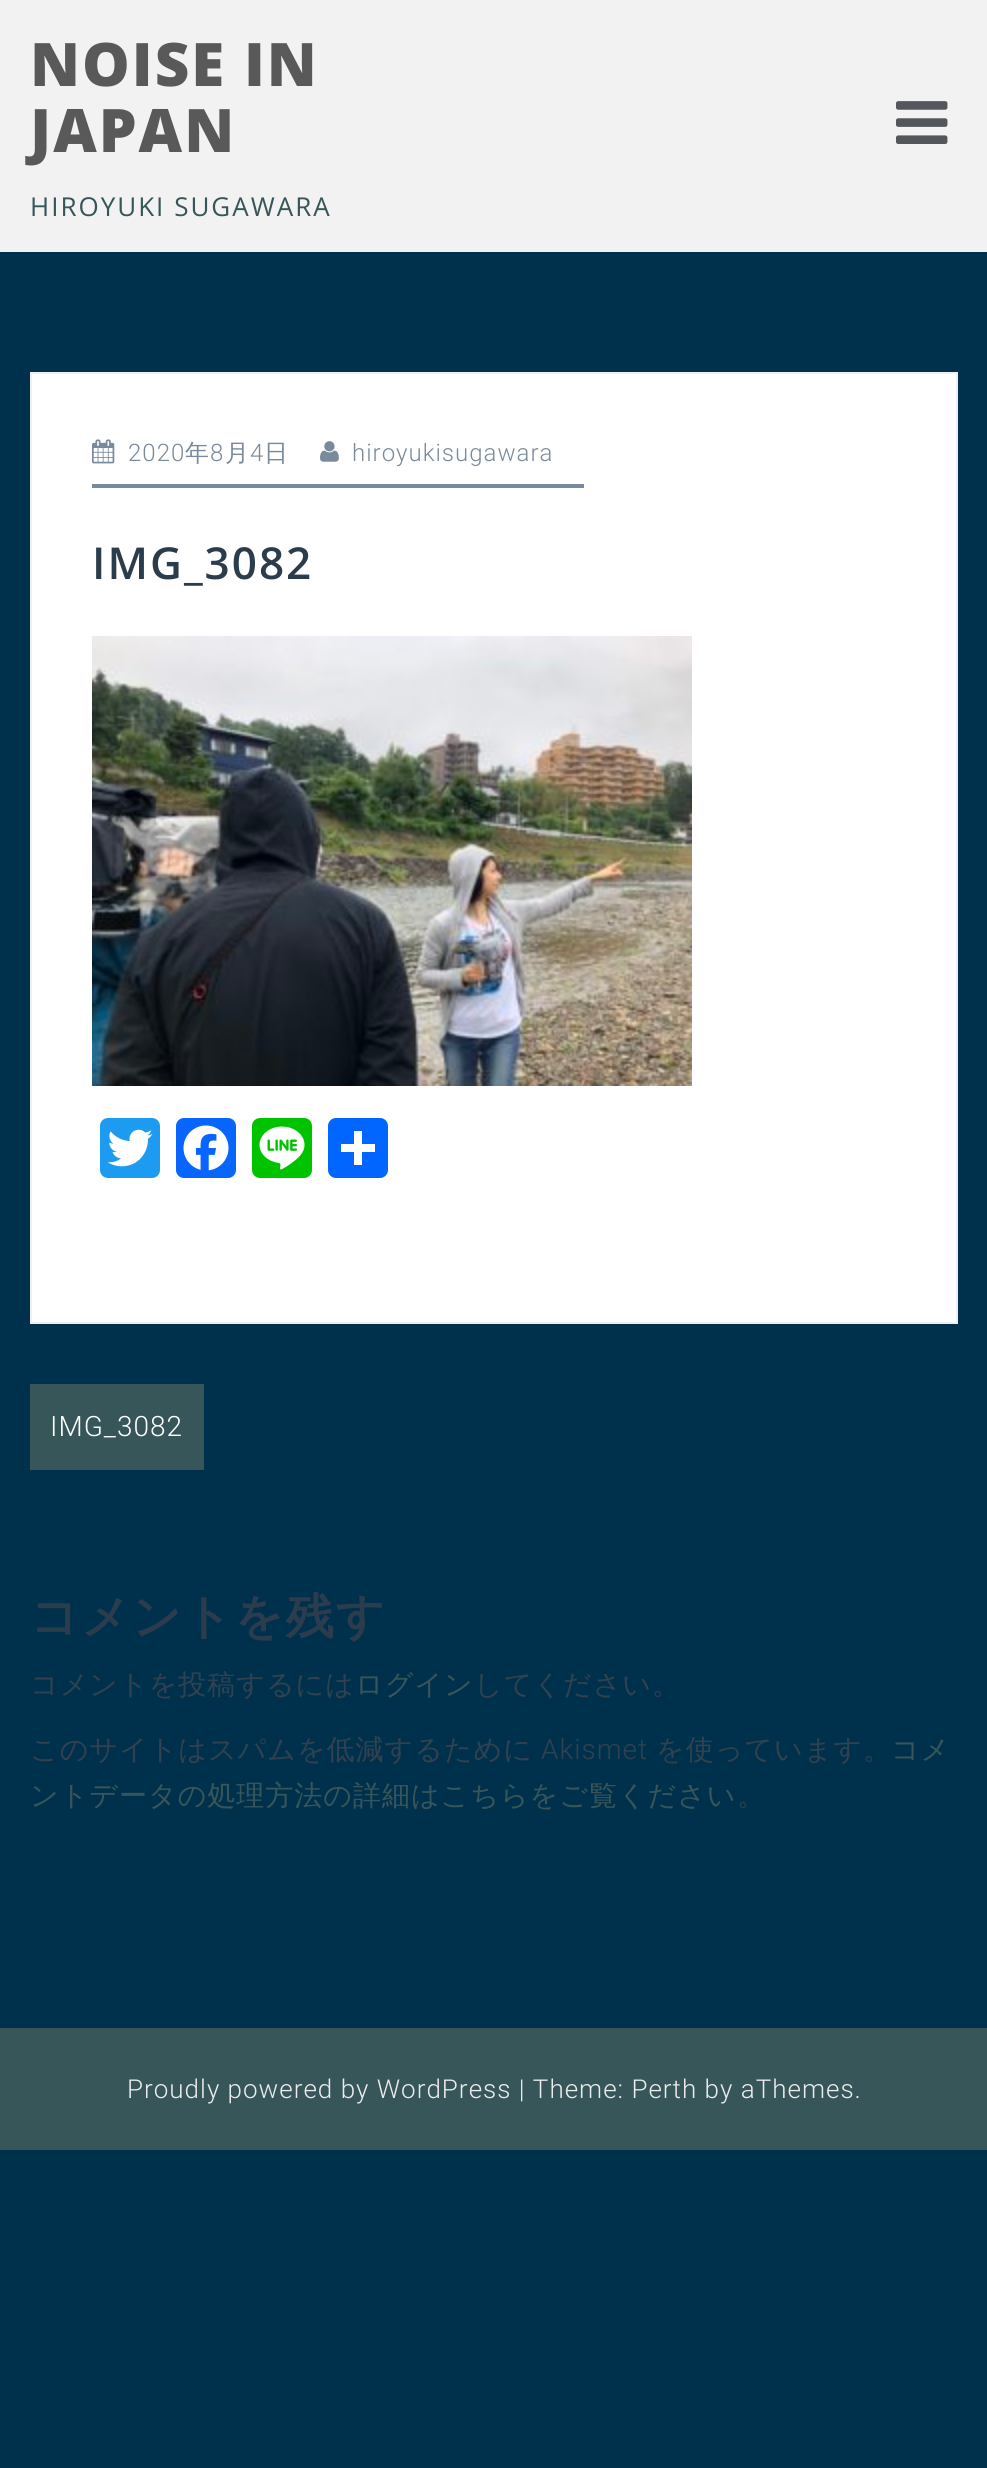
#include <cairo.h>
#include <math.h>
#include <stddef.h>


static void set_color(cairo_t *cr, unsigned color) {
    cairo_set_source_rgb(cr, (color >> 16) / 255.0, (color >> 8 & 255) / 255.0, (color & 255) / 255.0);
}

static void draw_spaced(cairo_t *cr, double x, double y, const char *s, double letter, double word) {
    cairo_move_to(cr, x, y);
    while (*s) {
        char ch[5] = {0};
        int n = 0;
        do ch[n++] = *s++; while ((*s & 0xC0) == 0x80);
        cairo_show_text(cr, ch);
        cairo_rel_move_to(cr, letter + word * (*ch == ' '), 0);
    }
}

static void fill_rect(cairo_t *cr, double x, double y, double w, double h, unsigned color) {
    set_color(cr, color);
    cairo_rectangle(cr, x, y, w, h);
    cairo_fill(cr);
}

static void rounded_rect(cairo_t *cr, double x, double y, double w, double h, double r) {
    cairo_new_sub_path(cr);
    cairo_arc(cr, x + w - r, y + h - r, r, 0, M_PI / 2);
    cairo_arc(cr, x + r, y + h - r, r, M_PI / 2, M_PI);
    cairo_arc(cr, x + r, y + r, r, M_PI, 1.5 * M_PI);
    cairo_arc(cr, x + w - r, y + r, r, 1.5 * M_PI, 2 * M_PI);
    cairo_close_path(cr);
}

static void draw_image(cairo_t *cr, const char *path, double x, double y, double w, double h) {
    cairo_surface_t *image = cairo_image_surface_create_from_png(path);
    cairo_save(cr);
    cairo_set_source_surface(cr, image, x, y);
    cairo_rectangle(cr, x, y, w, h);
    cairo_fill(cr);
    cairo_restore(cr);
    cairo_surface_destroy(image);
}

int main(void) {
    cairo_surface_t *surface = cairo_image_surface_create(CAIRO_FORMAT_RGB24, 987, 2468);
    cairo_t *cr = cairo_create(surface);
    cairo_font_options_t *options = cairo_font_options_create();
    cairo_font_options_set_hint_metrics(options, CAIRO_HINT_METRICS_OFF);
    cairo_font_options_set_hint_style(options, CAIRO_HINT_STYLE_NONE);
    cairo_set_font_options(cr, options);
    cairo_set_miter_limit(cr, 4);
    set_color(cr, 0x00314C);
    cairo_paint(cr);
    fill_rect(cr, 0, 0, 987, 250, 0xF2F2F2);
    fill_rect(cr, 0, 250, 987, 2, 0xF0F0F0);
    cairo_select_font_face(cr, "Open Sans ExtraBold", CAIRO_FONT_SLANT_NORMAL, CAIRO_FONT_WEIGHT_NORMAL);
    cairo_set_font_size(cr, 60);
    set_color(cr, 0x595959);
    draw_spaced(cr, 30, 86, "NOISE IN", 2, 0);
    draw_spaced(cr, 30, 152, "JAPAN", 2, 0);
    cairo_select_font_face(cr, "Open Sans", CAIRO_FONT_SLANT_NORMAL, CAIRO_FONT_WEIGHT_NORMAL);
    cairo_set_font_size(cr, 26);
    set_color(cr, 0x375659);
    draw_spaced(cr, 30, 216, "HIROYUKI SUGAWARA", 2, 0);
    draw_image(cr, "assets/img1.png", 896, 101, 52, 43);
    set_color(cr, 0xFFFFFF);
    cairo_rectangle(cr, 31, 373, 926, 950);
    cairo_fill_preserve(cr);
    set_color(cr, 0xF0F0F0);
    cairo_stroke(cr);
    fill_rect(cr, 92, 484, 492, 4, 0x798A9B);
    draw_image(cr, "assets/img2.png", 92, 439, 23, 25);
    cairo_select_font_face(cr, "Roboto Light", CAIRO_FONT_SLANT_NORMAL, CAIRO_FONT_WEIGHT_NORMAL);
    cairo_set_font_size(cr, 24);
    draw_spaced(cr, 128, 461, "2020", 1, 0);
    cairo_select_font_face(cr, "WenQuanYi Zen Hei Medium", CAIRO_FONT_SLANT_NORMAL, CAIRO_FONT_WEIGHT_NORMAL);
    draw_spaced(cr, 185, 461, "年", 1, 0);
    cairo_select_font_face(cr, "Roboto Light", CAIRO_FONT_SLANT_NORMAL, CAIRO_FONT_WEIGHT_NORMAL);
    draw_spaced(cr, 210, 461, "8", 1, 0);
    cairo_select_font_face(cr, "WenQuanYi Zen Hei Medium", CAIRO_FONT_SLANT_NORMAL, CAIRO_FONT_WEIGHT_NORMAL);
    draw_spaced(cr, 225, 461, "月", 1, 0);
    cairo_select_font_face(cr, "Roboto Light", CAIRO_FONT_SLANT_NORMAL, CAIRO_FONT_WEIGHT_NORMAL);
    draw_spaced(cr, 250, 461, "4", 1, 0);
    cairo_select_font_face(cr, "WenQuanYi Zen Hei Medium", CAIRO_FONT_SLANT_NORMAL, CAIRO_FONT_WEIGHT_NORMAL);
    draw_spaced(cr, 264, 461, "日", 1, 0);
    draw_image(cr, "assets/img3.png", 320, 441, 19, 21);
    cairo_select_font_face(cr, "Roboto Light", CAIRO_FONT_SLANT_NORMAL, CAIRO_FONT_WEIGHT_NORMAL);
    draw_spaced(cr, 352, 461, "hiroyukisugawara", 1, 0);
    cairo_select_font_face(cr, "Open Sans SemiBold", CAIRO_FONT_SLANT_NORMAL, CAIRO_FONT_WEIGHT_NORMAL);
    cairo_set_font_size(cr, 44);
    set_color(cr, 0x2B3C4D);
    draw_spaced(cr, 92, 579, "IMG_3082", 2, 0);
    draw_image(cr, "assets/img4.png", 92, 636, 600, 450);
    set_color(cr, 0x1D9BF0);
    rounded_rect(cr, 100, 1118, 60, 60, 8);
    cairo_fill(cr);
    draw_image(cr, "assets/img5.png", 107, 1129, 46, 38);
    set_color(cr, 0x0866FF);
    rounded_rect(cr, 176, 1118, 60, 60, 8);
    cairo_fill(cr);
    draw_image(cr, "assets/img6.png", 183, 1125, 46, 46);
    set_color(cr, 0x00C300);
    rounded_rect(cr, 252, 1118, 60, 60, 8);
    cairo_fill(cr);
    draw_image(cr, "assets/img7.png", 259, 1126, 46, 44);
    set_color(cr, 0x0166FF);
    rounded_rect(cr, 328, 1118, 60, 60, 8);
    cairo_fill(cr);
    fill_rect(cr, 354, 1131, 8, 34, 0xFFFFFF);
    fill_rect(cr, 341, 1144, 34, 8, 0xFFFFFF);
    fill_rect(cr, 30, 1384, 174, 86, 0x375659);
    cairo_select_font_face(cr, "Roboto Light", CAIRO_FONT_SLANT_NORMAL, CAIRO_FONT_WEIGHT_NORMAL);
    cairo_set_font_size(cr, 28);
    set_color(cr, 0xFFFFFF);
    draw_spaced(cr, 50, 1436, "IMG_3082", 1, 0);
    cairo_select_font_face(cr, "WenQuanYi Zen Hei", CAIRO_FONT_SLANT_NORMAL, CAIRO_FONT_WEIGHT_BOLD);
    cairo_set_font_size(cr, 48);
    set_color(cr, 0x2B3C4D);
    draw_spaced(cr, 30, 1633, "コメントを残す", 2, 0);
    cairo_select_font_face(cr, "WenQuanYi Zen Hei Medium", CAIRO_FONT_SLANT_NORMAL, CAIRO_FONT_WEIGHT_NORMAL);
    cairo_set_font_size(cr, 28);
    set_color(cr, 0x31414F);
    draw_spaced(cr, 30, 1694, "コメントを投稿するには", 1, 0);
    set_color(cr, 0x375659);
    draw_spaced(cr, 355, 1694, "ログイン", 1, 0);
    set_color(cr, 0x31414F);
    draw_spaced(cr, 474, 1694, "してください。", 1, 0);
    draw_spaced(cr, 30, 1759, "このサイトはスパムを低減するために", 1, 0);
    cairo_select_font_face(cr, "Roboto Light", CAIRO_FONT_SLANT_NORMAL, CAIRO_FONT_WEIGHT_NORMAL);
    draw_spaced(cr, 541, 1759, "Akismet", 1, 0);
    cairo_select_font_face(cr, "WenQuanYi Zen Hei Medium", CAIRO_FONT_SLANT_NORMAL, CAIRO_FONT_WEIGHT_NORMAL);
    draw_spaced(cr, 656, 1759, "を使っています。", 1, 0);
    set_color(cr, 0x375659);
    draw_spaced(cr, 891, 1759, "コメ", 1, 0);
    draw_spaced(cr, 30, 1805, "ントデータの処理方法の詳細はこちらをご覧ください", 1, 0);
    set_color(cr, 0x31414F);
    draw_spaced(cr, 737, 1805, "。", 1, 0);
    fill_rect(cr, 0, 2028, 987, 122, 0x375659);
    cairo_select_font_face(cr, "Roboto Light", CAIRO_FONT_SLANT_NORMAL, CAIRO_FONT_WEIGHT_NORMAL);
    cairo_set_font_size(cr, 26);
    set_color(cr, 0xECECEC);
    draw_spaced(cr, 127, 2098, "Proudly powered by WordPress | Theme: Perth by aThemes.", 1, 0);
    cairo_surface_write_to_png(surface, "output.png");
    cairo_font_options_destroy(options);
    cairo_destroy(cr);
    cairo_surface_destroy(surface);
    return 0;
}
